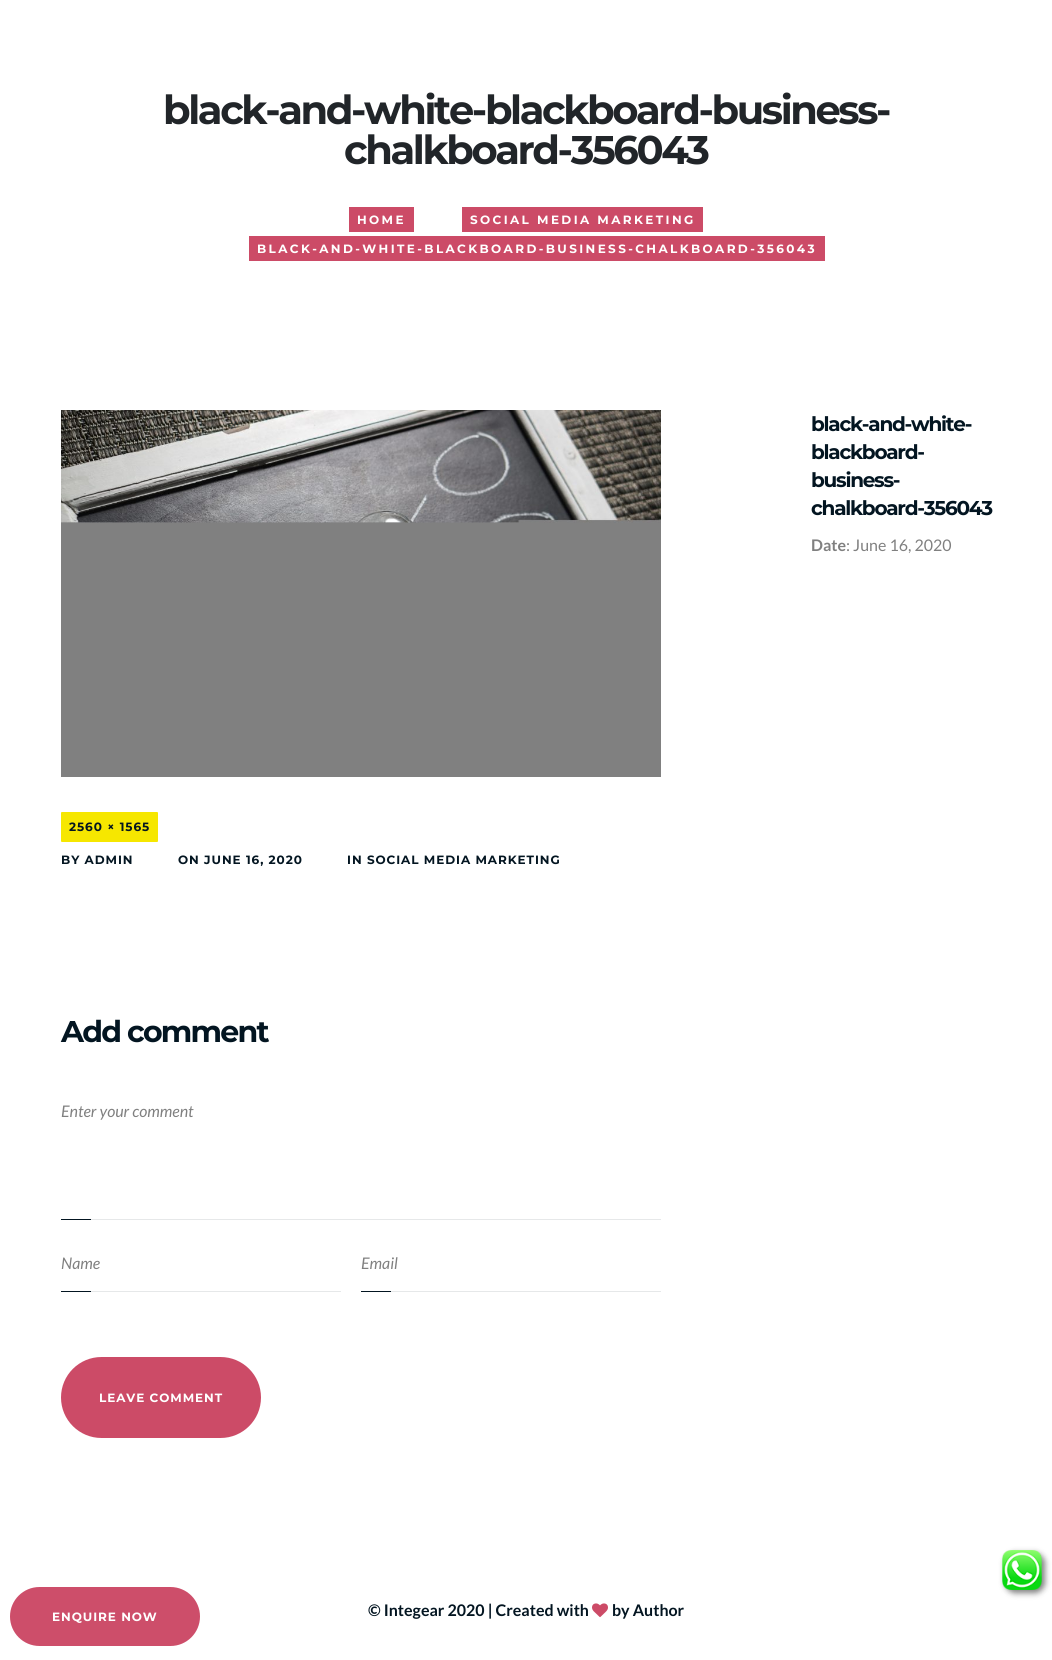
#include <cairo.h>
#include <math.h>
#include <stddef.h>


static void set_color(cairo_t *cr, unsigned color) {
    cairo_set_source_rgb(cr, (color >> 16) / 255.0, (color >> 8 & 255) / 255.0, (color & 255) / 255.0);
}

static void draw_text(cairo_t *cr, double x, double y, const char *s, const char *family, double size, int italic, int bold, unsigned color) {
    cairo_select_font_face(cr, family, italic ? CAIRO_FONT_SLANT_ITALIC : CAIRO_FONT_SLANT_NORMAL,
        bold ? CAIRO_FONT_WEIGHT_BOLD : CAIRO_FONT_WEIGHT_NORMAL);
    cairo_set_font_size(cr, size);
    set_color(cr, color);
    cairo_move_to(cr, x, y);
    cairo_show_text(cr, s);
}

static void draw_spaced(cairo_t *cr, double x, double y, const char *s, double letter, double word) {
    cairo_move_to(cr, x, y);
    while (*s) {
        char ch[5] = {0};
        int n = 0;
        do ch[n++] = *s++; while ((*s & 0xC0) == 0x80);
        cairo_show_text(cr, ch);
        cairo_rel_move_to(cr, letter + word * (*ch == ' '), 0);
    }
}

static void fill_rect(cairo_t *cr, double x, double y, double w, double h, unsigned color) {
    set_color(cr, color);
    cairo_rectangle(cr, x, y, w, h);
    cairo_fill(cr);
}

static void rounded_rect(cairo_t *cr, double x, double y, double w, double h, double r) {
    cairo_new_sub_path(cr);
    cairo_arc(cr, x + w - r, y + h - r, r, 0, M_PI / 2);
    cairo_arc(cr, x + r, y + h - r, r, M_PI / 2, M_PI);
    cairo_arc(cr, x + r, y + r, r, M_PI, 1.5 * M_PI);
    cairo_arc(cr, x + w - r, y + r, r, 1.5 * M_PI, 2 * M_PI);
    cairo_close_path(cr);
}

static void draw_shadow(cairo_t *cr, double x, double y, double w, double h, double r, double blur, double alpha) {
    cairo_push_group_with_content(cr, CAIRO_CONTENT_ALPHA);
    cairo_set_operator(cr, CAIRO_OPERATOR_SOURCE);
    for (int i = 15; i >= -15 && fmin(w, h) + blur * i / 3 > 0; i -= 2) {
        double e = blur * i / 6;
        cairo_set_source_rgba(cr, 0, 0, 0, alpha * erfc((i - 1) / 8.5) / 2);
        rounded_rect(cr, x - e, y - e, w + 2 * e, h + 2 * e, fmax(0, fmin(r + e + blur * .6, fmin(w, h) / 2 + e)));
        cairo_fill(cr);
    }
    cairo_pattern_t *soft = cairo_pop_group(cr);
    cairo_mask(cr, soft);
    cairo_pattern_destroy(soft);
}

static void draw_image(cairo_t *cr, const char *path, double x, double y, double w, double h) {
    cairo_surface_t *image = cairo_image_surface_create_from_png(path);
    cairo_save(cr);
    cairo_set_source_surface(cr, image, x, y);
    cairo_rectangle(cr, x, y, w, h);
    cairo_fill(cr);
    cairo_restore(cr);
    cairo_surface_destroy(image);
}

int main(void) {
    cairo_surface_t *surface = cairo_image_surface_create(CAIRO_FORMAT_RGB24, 1052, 1660);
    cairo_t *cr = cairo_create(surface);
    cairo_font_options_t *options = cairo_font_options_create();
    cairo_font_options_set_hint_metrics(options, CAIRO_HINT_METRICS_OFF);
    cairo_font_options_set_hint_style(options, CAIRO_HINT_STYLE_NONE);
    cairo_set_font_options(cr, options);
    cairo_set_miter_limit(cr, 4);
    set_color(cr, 0xFFFFFF);
    cairo_paint(cr);
    cairo_select_font_face(cr, "Montserrat", CAIRO_FONT_SLANT_NORMAL, CAIRO_FONT_WEIGHT_BOLD);
    cairo_set_font_size(cr, 40);
    set_color(cr, 0x212529);
    draw_spaced(cr, 163, 124, "black-and-white-blackboard-business-", -2.4, 0);
    draw_spaced(cr, 344, 164, "chalkboard-356043", -2.4, 0);
    fill_rect(cr, 349, 207, 65, 25, 0xCC4B67);
    cairo_set_font_size(cr, 12);
    set_color(cr, 0xFFFFFF);
    draw_spaced(cr, 357, 224, "HOME", 2.4, 0);
    fill_rect(cr, 462, 207, 241, 25, 0xCC4B67);
    set_color(cr, 0xFFFFFF);
    draw_spaced(cr, 470, 224, "SOCIAL MEDIA MARKETING", 2.4, 0);
    fill_rect(cr, 249, 236, 576, 25, 0xCC4B67);
    set_color(cr, 0xFFFFFF);
    draw_spaced(cr, 257, 253, "BLACK-AND-WHITE-BLACKBOARD-BUSINESS-CHALKBOARD-356043", 2.4, 0);
    cairo_set_font_size(cr, 20);
    set_color(cr, 0x031521);
    draw_spaced(cr, 811, 431, "black-and-white-", -1.25, 0);
    draw_spaced(cr, 811, 459, "blackboard-", -1.25, 0);
    draw_spaced(cr, 811, 487, "business-", -1.25, 0);
    draw_spaced(cr, 811, 515, "chalkboard-356043", -1.25, 0);
    draw_text(cr, 811, 551, "Date", "Lato", 16, 0, 1, 0x808080);
    draw_text(cr, 846, 551, ": June 16, 2020", "Lato", 16, 0, 0, 0x808080);
    draw_image(cr, "assets/img1.png", 61, 410, 600, 367);
    set_color(cr, 0xF6E700);
    rounded_rect(cr, 61, 812, 97, 30, 1);
    cairo_fill(cr);
    cairo_select_font_face(cr, "Montserrat", CAIRO_FONT_SLANT_NORMAL, CAIRO_FONT_WEIGHT_BOLD);
    cairo_set_font_size(cr, 12);
    set_color(cr, 0x031521);
    draw_spaced(cr, 69, 831, "2560 × 1565", 0.95, 0);
    draw_spaced(cr, 61, 864, "BY ADMIN", 0.95, 0);
    draw_spaced(cr, 178, 864, "ON JUNE 16, 2020", 0.95, 0);
    draw_spaced(cr, 347, 864, "IN SOCIAL MEDIA MARKETING", 0.95, 0);
    cairo_set_font_size(cr, 30);
    draw_spaced(cr, 61, 1042, "Add comment", -1.75, 0);
    fill_rect(cr, 91, 1219, 570, 1, 0xE6E8E9);
    draw_text(cr, 61, 1117, "Enter your comment", "Lato", 16, 1, 0, 0x808080);
    fill_rect(cr, 61, 1219, 30, 1, 0x031521);
    fill_rect(cr, 91, 1291, 250, 1, 0xE6E8E9);
    draw_text(cr, 61, 1269, "Name", "Lato", 16, 1, 0, 0x808080);
    fill_rect(cr, 61, 1291, 30, 1, 0x031521);
    fill_rect(cr, 391, 1291, 270, 1, 0xE6E8E9);
    draw_text(cr, 361, 1269, "Email", "Lato", 16, 1, 0, 0x808080);
    fill_rect(cr, 361, 1291, 30, 1, 0x031521);
    set_color(cr, 0xCC4B67);
    rounded_rect(cr, 61, 1357, 200, 81, 40.5);
    cairo_fill(cr);
    cairo_select_font_face(cr, "Montserrat", CAIRO_FONT_SLANT_NORMAL, CAIRO_FONT_WEIGHT_BOLD);
    cairo_set_font_size(cr, 12);
    set_color(cr, 0xFFFFFF);
    draw_spaced(cr, 99, 1402, "LEAVE COMMENT", 0.95, 0);
    draw_text(cr, 368, 1616, "© Integear 2020 | Created with", "Lato", 16, 0, 1, 0x031521);
    draw_image(cr, "assets/img2.png", 592, 1603, 16, 15);
    draw_text(cr, 612, 1616, "by Author", "Lato", 16, 0, 1, 0x031521);
    set_color(cr, 0x000000);
    draw_shadow(cr, 1005, 1553, 40, 40, 10, 3, 0.5);
    draw_image(cr, "assets/img3.png", 1002, 1550, 40, 40);
    set_color(cr, 0xCD4E6A);
    rounded_rect(cr, 10, 1587, 190, 59, 29.5);
    cairo_fill(cr);
    cairo_select_font_face(cr, "Montserrat", CAIRO_FONT_SLANT_NORMAL, CAIRO_FONT_WEIGHT_BOLD);
    cairo_set_font_size(cr, 12);
    set_color(cr, 0xFFFFFF);
    draw_spaced(cr, 52, 1621, "ENQUIRE NOW", 0.95, 0);
    cairo_surface_write_to_png(surface, "output.png");
    cairo_font_options_destroy(options);
    cairo_destroy(cr);
    cairo_surface_destroy(surface);
    return 0;
}
